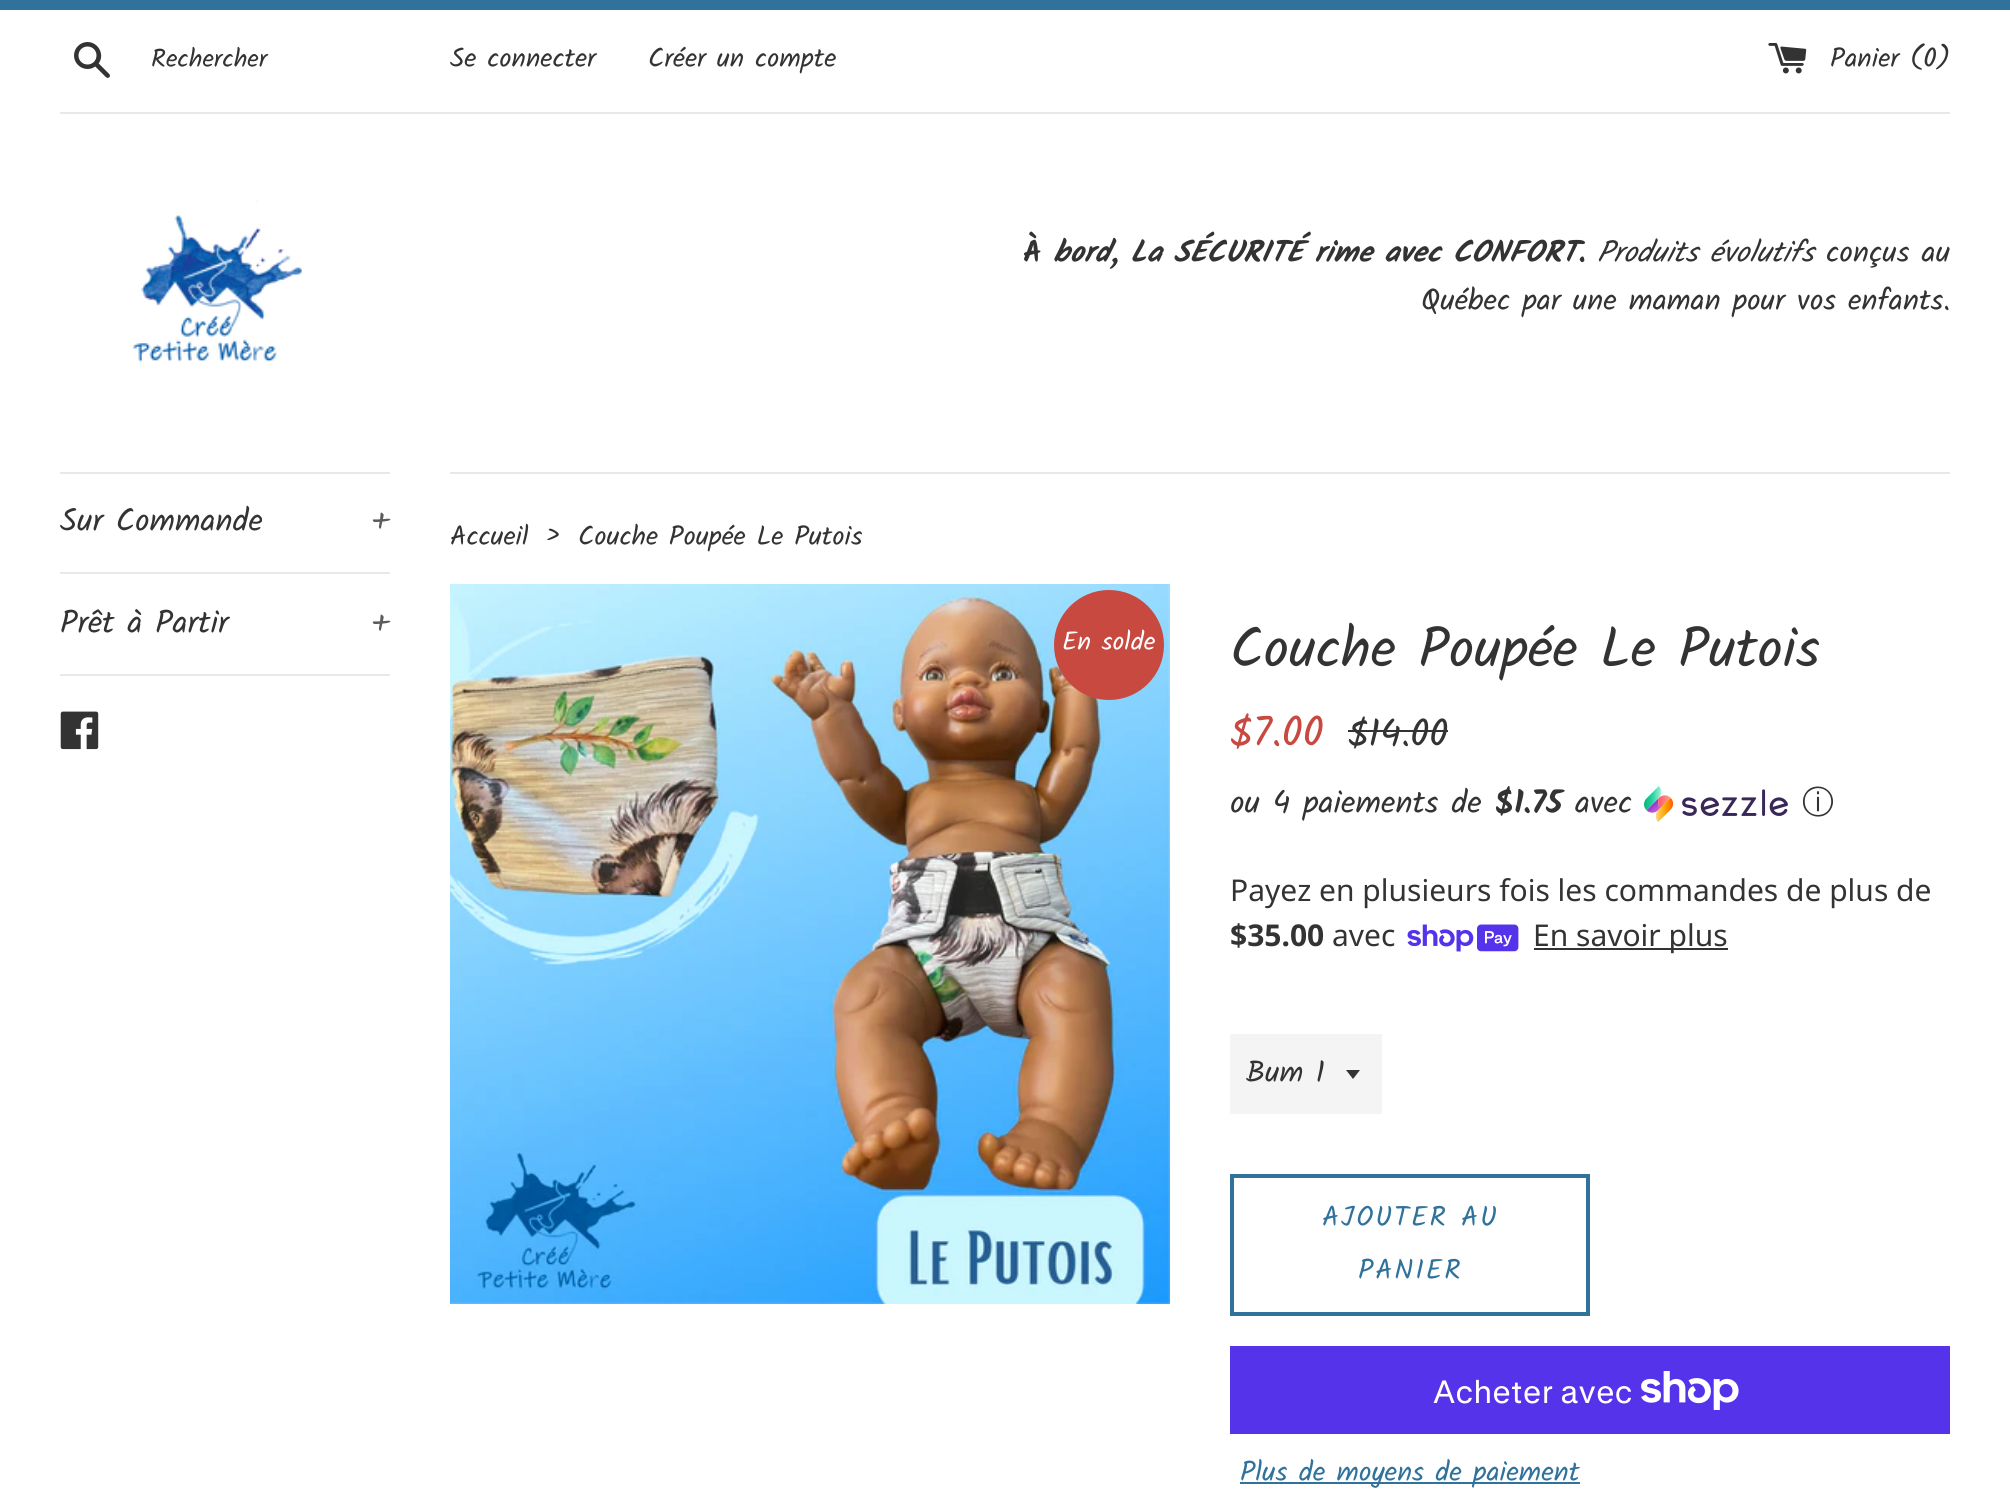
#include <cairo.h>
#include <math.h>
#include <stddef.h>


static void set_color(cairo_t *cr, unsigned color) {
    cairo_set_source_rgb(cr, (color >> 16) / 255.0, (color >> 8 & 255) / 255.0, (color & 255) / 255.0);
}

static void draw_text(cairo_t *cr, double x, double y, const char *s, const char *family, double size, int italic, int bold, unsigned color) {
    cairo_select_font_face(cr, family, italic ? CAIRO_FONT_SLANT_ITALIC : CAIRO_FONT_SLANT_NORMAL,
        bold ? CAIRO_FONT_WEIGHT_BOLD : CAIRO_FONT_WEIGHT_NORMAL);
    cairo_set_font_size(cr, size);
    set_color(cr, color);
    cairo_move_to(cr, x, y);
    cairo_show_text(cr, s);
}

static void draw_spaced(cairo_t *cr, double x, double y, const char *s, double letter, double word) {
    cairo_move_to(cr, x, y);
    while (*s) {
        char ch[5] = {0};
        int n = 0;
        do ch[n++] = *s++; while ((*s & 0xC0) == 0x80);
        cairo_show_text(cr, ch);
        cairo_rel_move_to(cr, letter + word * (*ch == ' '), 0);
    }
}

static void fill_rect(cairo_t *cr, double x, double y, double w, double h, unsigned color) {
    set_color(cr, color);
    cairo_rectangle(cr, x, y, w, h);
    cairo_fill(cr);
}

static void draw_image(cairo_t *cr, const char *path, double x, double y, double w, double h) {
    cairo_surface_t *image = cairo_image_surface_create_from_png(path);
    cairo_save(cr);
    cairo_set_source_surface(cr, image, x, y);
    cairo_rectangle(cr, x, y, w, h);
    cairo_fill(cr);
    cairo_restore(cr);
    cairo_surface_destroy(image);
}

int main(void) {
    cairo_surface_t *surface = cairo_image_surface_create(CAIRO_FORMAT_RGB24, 2010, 1493);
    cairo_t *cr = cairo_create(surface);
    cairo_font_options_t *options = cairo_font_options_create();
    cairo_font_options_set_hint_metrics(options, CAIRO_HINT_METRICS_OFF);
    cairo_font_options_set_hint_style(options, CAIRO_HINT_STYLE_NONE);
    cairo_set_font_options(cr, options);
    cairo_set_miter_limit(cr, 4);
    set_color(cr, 0xFFFFFF);
    cairo_paint(cr);
    fill_rect(cr, 0, 0, 2010, 10, 0x30729B);
    draw_image(cr, "assets/img1.png", 74, 42, 36, 36);
    draw_text(cr, 151, 67, "Rechercher", "Kalam", 25.5, 0, 0, 0x333333);
    draw_text(cr, 450, 67, "Se connecter", "Kalam", 27, 0, 0, 0x333333);
    draw_text(cr, 648, 67, "Créer un compte", "Kalam", 27, 0, 0, 0x333333);
    draw_image(cr, "assets/img2.png", 1768, 43, 39, 31);
    draw_text(cr, 1830, 67, "Panier (0)", "Kalam", 27, 0, 0, 0x333333);
    fill_rect(cr, 60, 112, 1890, 2, 0xE8E8E8);
    draw_image(cr, "assets/img3.png", 133, 200, 169, 162);
    draw_text(cr, 1023, 262, "À", "Kalam", 30, 0, 1, 0x333333);
    draw_text(cr, 1053, 262, "bord, La SÉCURITÉ rime avec CONFORT.", "Kalam", 30, 1, 1, 0x333333);
    draw_text(cr, 1597, 262, "Produits évolutifs", "Kalam", 30, 1, 0, 0x333333);
    draw_text(cr, 1826, 262, "conçus au", "Kalam", 30, 0, 0, 0x333333);
    draw_text(cr, 1421, 310, "Québec par une maman pour vos enfants.", "Kalam", 30, 0, 0, 0x333333);
    fill_rect(cr, 60, 472, 330, 2, 0xE8E8E8);
    fill_rect(cr, 60, 572, 330, 2, 0xE8E8E8);
    draw_text(cr, 60, 531, "Sur Commande", "Kalam", 32, 0, 0, 0x333333);
    draw_text(cr, 371, 531, "+", "Kalam", 32, 0, 0, 0x5C5C5C);
    fill_rect(cr, 60, 674, 330, 2, 0xE8E8E8);
    draw_text(cr, 60, 633, "Prêt à Partir", "Kalam", 32, 0, 0, 0x333333);
    draw_text(cr, 371, 633, "+", "Kalam", 32, 0, 0, 0x5C5C5C);
    draw_image(cr, "assets/img4.png", 60, 711, 39, 39);
    fill_rect(cr, 450, 472, 1500, 2, 0xE8E8E8);
    draw_text(cr, 450, 545, "Accueil", "Kalam", 27, 0, 0, 0x333333);
    draw_text(cr, 543, 545, "›", "Kalam", 33, 0, 0, 0x333333);
    draw_text(cr, 578, 545, "Couche Poupée Le Putois", "Kalam", 27, 0, 0, 0x333333);
    draw_image(cr, "assets/img5.png", 450, 584, 720, 720);
    set_color(cr, 0xC8493F);
    cairo_arc(cr, 1109, 645, 55, 0, 2 * M_PI);
    cairo_fill(cr);
    draw_text(cr, 1062, 650, "En solde", "Kalam", 26, 0, 0, 0xFFFFFF);
    draw_text(cr, 1230, 667, "Couche Poupée Le Putois", "Kalam", 56, 0, 0, 0x333333);
    draw_text(cr, 1230, 746, "$7.00", "Kalam", 42, 0, 0, 0xC8493F);
    draw_text(cr, 1348, 746, "$14.00", "Kalam", 38, 0, 0, 0x333333);
    fill_rect(cr, 1348, 730, 100, 2, 0x333333);
    draw_text(cr, 1230, 813, "ou 4 paiements de", "Kalam", 32, 0, 0, 0x333333);
    draw_text(cr, 1495, 813, "$1.75", "Kalam", 32, 0, 1, 0x333333);
    draw_text(cr, 1575, 813, "avec", "Kalam", 32, 0, 0, 0x333333);
    draw_image(cr, "assets/img6.png", 1644, 786, 144, 36);
    draw_text(cr, 1802, 813, "ⓘ", "WenQuanYi Zen Hei Medium", 32, 0, 0, 0x333333);
    draw_text(cr, 1230, 901, "Payez en plusieurs fois les commandes de plus de", "Noto Sans", 30, 0, 0, 0x333333);
    draw_text(cr, 1230, 946, "$35.00", "Noto Sans", 30, 0, 1, 0x333333);
    draw_text(cr, 1332, 946, "avec", "Noto Sans", 30, 0, 0, 0x333333);
    draw_image(cr, "assets/img7.png", 1407, 924, 112, 28);
    fill_rect(cr, 1534, 948, 194, 2, 0x333333);
    draw_text(cr, 1533, 946, "En savoir plus", "Noto Sans", 30, 0, 0, 0x333333);
    fill_rect(cr, 1230, 1034, 152, 80, 0xF4F4F4);
    set_color(cr, 0x333333);
    cairo_new_path(cr);
    cairo_move_to(cr, 1346, 1070);
    cairo_line_to(cr, 1353, 1079);
    cairo_line_to(cr, 1360, 1070);
    cairo_close_path(cr);
    cairo_fill(cr);
    draw_text(cr, 1246, 1082, "Bum 1", "Kalam", 30, 0, 0, 0x333333);
    cairo_rectangle(cr, 1232, 1176, 356, 138);
    set_color(cr, 0x30729B);
    cairo_set_line_width(cr, 4);
    cairo_stroke(cr);
    cairo_set_font_size(cr, 28);
    draw_spaced(cr, 1322, 1226, "AJOUTER AU", 2, 0);
    draw_spaced(cr, 1358, 1279, "PANIER", 2, 0);
    fill_rect(cr, 1230, 1346, 720, 88, 0x5433EB);
    draw_text(cr, 1433, 1403, "Acheter avec", "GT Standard", 32, 0, 0, 0xFFFFFF);
    draw_image(cr, "assets/img8.png", 1641, 1371, 98, 39);
    fill_rect(cr, 1240, 1482, 340, 2, 0x30729B);
    draw_text(cr, 1240, 1481, "Plus de moyens de paiement", "Kalam", 28, 0, 0, 0x30729B);
    cairo_surface_write_to_png(surface, "output.png");
    cairo_font_options_destroy(options);
    cairo_destroy(cr);
    cairo_surface_destroy(surface);
    return 0;
}
